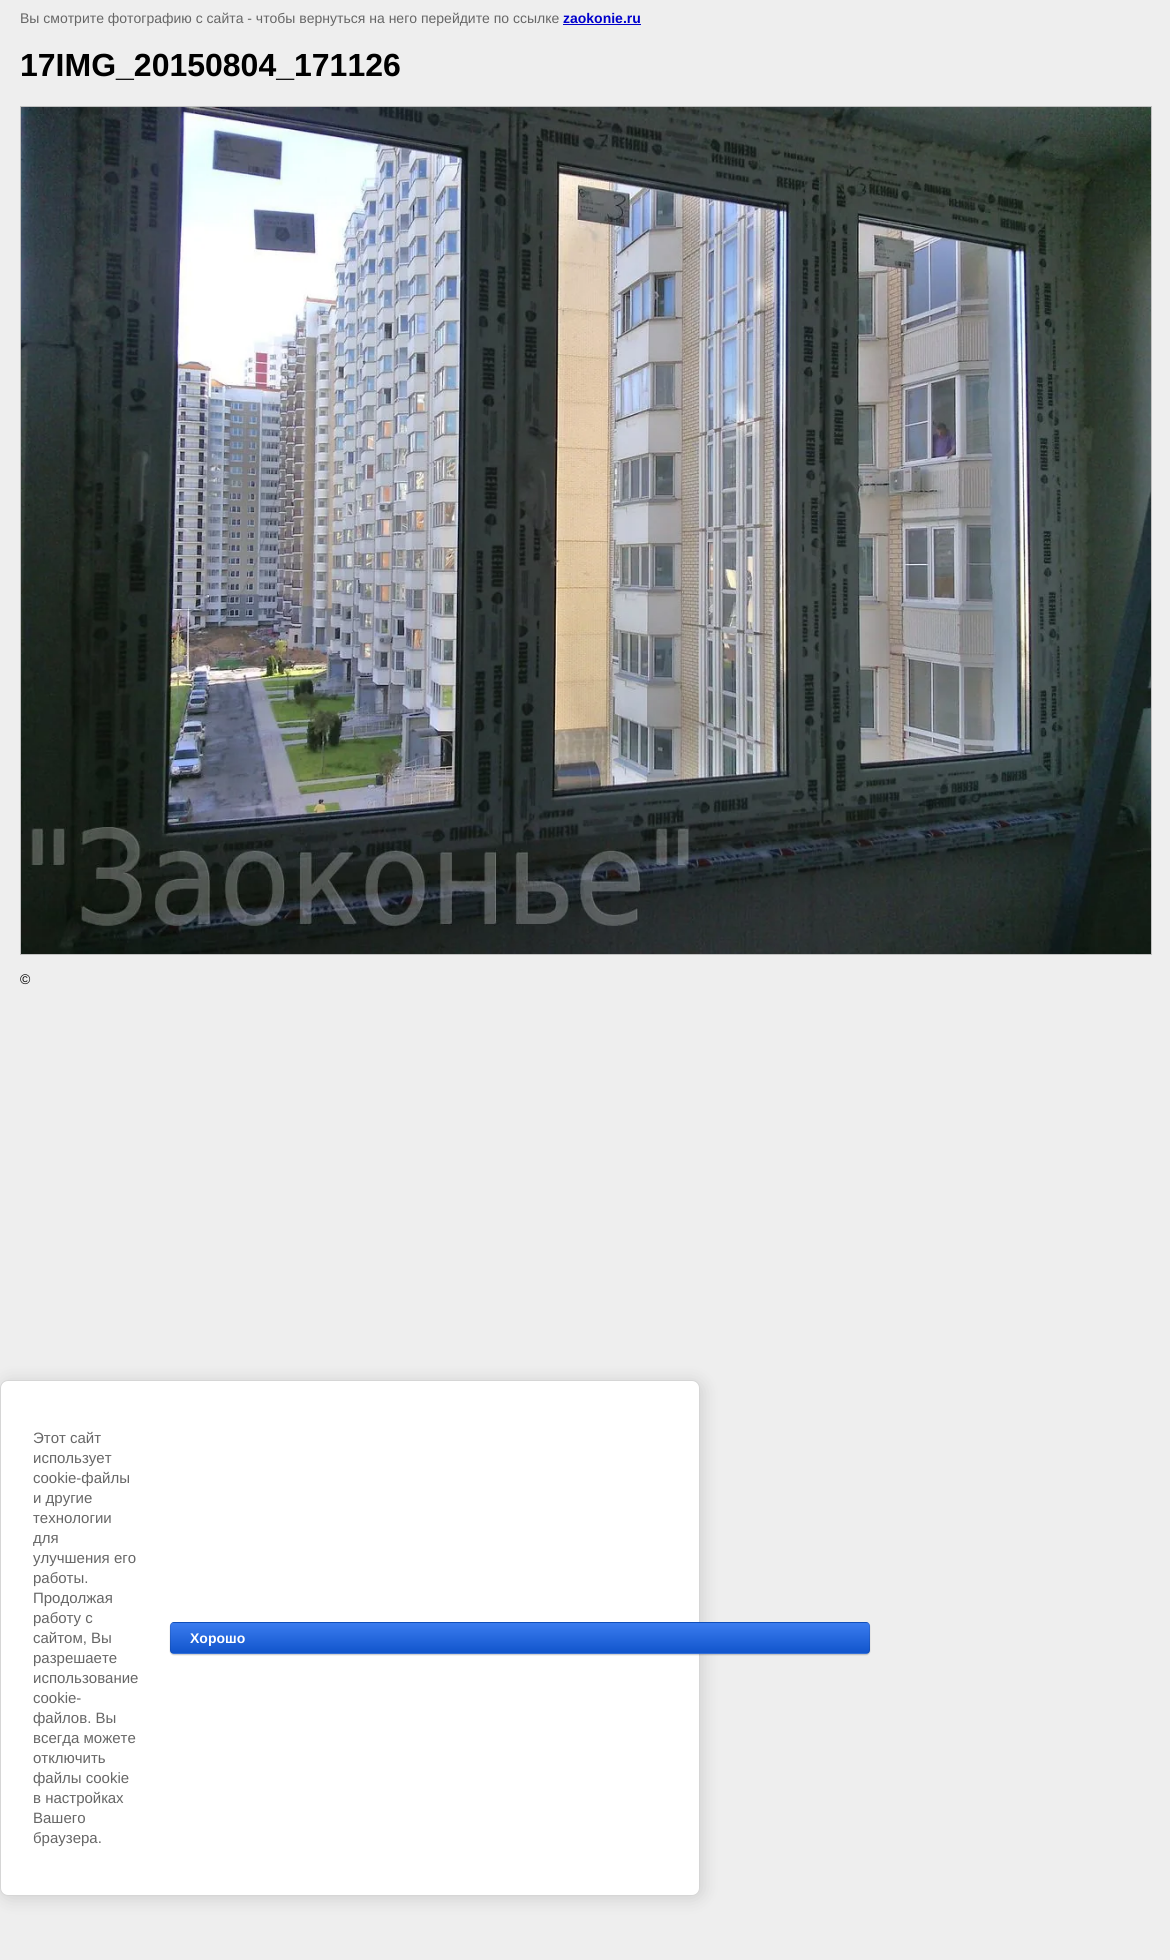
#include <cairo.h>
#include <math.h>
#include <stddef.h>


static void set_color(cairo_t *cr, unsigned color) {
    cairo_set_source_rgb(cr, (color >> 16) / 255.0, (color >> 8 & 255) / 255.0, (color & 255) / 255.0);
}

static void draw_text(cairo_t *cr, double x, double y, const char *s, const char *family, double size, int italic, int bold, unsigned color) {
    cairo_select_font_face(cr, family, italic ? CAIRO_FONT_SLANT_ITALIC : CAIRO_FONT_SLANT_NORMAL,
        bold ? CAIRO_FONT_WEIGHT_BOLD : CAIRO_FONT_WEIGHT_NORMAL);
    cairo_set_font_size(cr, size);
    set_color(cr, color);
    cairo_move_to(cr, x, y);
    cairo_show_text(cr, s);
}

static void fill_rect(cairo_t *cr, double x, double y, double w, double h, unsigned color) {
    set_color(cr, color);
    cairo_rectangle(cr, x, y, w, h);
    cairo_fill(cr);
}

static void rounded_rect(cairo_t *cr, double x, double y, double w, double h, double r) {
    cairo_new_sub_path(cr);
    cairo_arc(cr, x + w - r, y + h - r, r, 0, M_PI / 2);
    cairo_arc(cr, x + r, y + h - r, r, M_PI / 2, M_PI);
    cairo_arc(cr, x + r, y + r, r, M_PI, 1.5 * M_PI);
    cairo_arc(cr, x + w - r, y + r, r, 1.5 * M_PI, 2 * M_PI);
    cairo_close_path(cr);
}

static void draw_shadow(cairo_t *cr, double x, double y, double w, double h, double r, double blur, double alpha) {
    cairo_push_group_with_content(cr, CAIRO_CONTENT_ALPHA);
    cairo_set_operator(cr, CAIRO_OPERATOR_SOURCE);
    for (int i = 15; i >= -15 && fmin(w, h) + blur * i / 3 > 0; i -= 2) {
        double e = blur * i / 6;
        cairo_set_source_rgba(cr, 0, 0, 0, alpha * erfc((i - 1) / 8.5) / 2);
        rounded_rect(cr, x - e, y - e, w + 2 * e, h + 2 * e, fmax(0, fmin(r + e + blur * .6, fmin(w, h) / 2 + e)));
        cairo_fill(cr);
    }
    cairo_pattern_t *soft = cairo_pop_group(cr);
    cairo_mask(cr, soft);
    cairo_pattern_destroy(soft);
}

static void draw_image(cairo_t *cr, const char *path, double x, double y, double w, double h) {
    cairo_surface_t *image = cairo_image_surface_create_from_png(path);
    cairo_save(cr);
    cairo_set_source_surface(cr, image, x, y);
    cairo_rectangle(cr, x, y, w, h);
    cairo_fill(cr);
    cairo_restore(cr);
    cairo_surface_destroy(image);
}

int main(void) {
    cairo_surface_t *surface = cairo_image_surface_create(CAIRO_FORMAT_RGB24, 1170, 1960);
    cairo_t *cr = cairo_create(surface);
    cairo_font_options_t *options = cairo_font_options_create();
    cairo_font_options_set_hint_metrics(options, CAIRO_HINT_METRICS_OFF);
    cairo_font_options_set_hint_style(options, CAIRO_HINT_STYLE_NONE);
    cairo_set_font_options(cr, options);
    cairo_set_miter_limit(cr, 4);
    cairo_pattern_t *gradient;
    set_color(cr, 0xEEEEEE);
    cairo_paint(cr);
    draw_text(cr, 20, 23, "Вы смотрите фотографию с сайта - чтобы вернуться на него перейдите по ссылке", "Liberation Sans", 14, 0, 0, 0x666666);
    draw_text(cr, 563, 23, "zaokonie.ru", "Liberation Sans", 14, 0, 1, 0x0000CC);
    fill_rect(cr, 563, 24, 78, 1, 0x0000CC);
    draw_text(cr, 20, 76, "17IMG_20150804_171126", "Liberation Sans", 32, 0, 1, 0x000000);
    cairo_rectangle(cr, 20.5, 106.5, 1131, 848);
    set_color(cr, 0xC0C0C0);
    cairo_set_line_width(cr, 1);
    cairo_stroke(cr);
    draw_image(cr, "assets/img1.png", 21, 107, 1130, 847);
    draw_text(cr, 20, 984, "©", "Liberation Sans", 14, 0, 0, 0x000000);
    set_color(cr, 0x000000);
    draw_shadow(cr, 2, 1382, 700, 516, 8, 9, 0.14);
    set_color(cr, 0xFFFFFF);
    rounded_rect(cr, 0.5, 1380.5, 699, 515, 7.5);
    cairo_fill_preserve(cr);
    set_color(cr, 0xD6D6D6);
    cairo_stroke(cr);
    draw_text(cr, 33, 1443, "Этот сайт", "Liberation Sans", 15, 0, 0, 0x666666);
    draw_text(cr, 33, 1463, "использует", "Liberation Sans", 15, 0, 0, 0x666666);
    draw_text(cr, 33, 1483, "cookie-файлы", "Liberation Sans", 15, 0, 0, 0x666666);
    draw_text(cr, 33, 1503, "и другие", "Liberation Sans", 15, 0, 0, 0x666666);
    draw_text(cr, 33, 1523, "технологии", "Liberation Sans", 15, 0, 0, 0x666666);
    draw_text(cr, 33, 1543, "для", "Liberation Sans", 15, 0, 0, 0x666666);
    draw_text(cr, 33, 1563, "улучшения его", "Liberation Sans", 15, 0, 0, 0x666666);
    draw_text(cr, 33, 1583, "работы.", "Liberation Sans", 15, 0, 0, 0x666666);
    draw_text(cr, 33, 1603, "Продолжая", "Liberation Sans", 15, 0, 0, 0x666666);
    draw_text(cr, 33, 1623, "работу с", "Liberation Sans", 15, 0, 0, 0x666666);
    draw_text(cr, 33, 1643, "сайтом, Вы", "Liberation Sans", 15, 0, 0, 0x666666);
    draw_text(cr, 33, 1663, "разрешаете", "Liberation Sans", 15, 0, 0, 0x666666);
    draw_text(cr, 33, 1683, "использование", "Liberation Sans", 15, 0, 0, 0x666666);
    draw_text(cr, 33, 1703, "cookie-", "Liberation Sans", 15, 0, 0, 0x666666);
    draw_text(cr, 33, 1723, "файлов. Вы", "Liberation Sans", 15, 0, 0, 0x666666);
    draw_text(cr, 33, 1743, "всегда можете", "Liberation Sans", 15, 0, 0, 0x666666);
    draw_text(cr, 33, 1763, "отключить", "Liberation Sans", 15, 0, 0, 0x666666);
    draw_text(cr, 33, 1783, "файлы cookie", "Liberation Sans", 15, 0, 0, 0x666666);
    draw_text(cr, 33, 1803, "в настройках", "Liberation Sans", 15, 0, 0, 0x666666);
    draw_text(cr, 33, 1823, "Вашего", "Liberation Sans", 15, 0, 0, 0x666666);
    draw_text(cr, 33, 1843, "браузера.", "Liberation Sans", 15, 0, 0, 0x666666);
    set_color(cr, 0x000000);
    draw_shadow(cr, 170, 1623, 700, 32, 4, 0.5, 0.2);
    cairo_save(cr);
    rounded_rect(cr, 170, 1622, 700, 32, 4);
    cairo_clip(cr);
    gradient = cairo_pattern_create_linear(520, 1593, 520, 1623);
    cairo_pattern_add_color_stop_rgba(gradient, 0, 0.231, 0.486, 0.937, 1);
    cairo_pattern_add_color_stop_rgba(gradient, 1, 0.067, 0.333, 0.8, 1);
    cairo_set_source(cr, gradient);
    cairo_pattern_destroy(gradient);
    cairo_rectangle(cr, 170, 1622, 700, 1);
    cairo_fill(cr);
    gradient = cairo_pattern_create_linear(520, 1623, 520, 1653);
    cairo_pattern_add_color_stop_rgba(gradient, 0, 0.231, 0.486, 0.937, 1);
    cairo_pattern_add_color_stop_rgba(gradient, 1, 0.067, 0.333, 0.8, 1);
    cairo_set_source(cr, gradient);
    cairo_pattern_destroy(gradient);
    cairo_rectangle(cr, 170, 1623, 700, 30);
    cairo_fill(cr);
    gradient = cairo_pattern_create_linear(520, 1653, 520, 1683);
    cairo_pattern_add_color_stop_rgba(gradient, 0, 0.231, 0.486, 0.937, 1);
    cairo_pattern_add_color_stop_rgba(gradient, 1, 0.067, 0.333, 0.8, 1);
    cairo_set_source(cr, gradient);
    cairo_pattern_destroy(gradient);
    cairo_rectangle(cr, 170, 1653, 700, 1);
    cairo_fill(cr);
    cairo_restore(cr);
    rounded_rect(cr, 170.5, 1622.5, 699, 31, 3.5);
    cairo_set_source_rgba(cr, 0, 0, 0, 0.1);
    cairo_stroke(cr);
    draw_text(cr, 190, 1643, "Хорошо", "Liberation Sans", 14, 0, 1, 0xFFFFFF);
    cairo_surface_write_to_png(surface, "output.png");
    cairo_font_options_destroy(options);
    cairo_destroy(cr);
    cairo_surface_destroy(surface);
    return 0;
}
